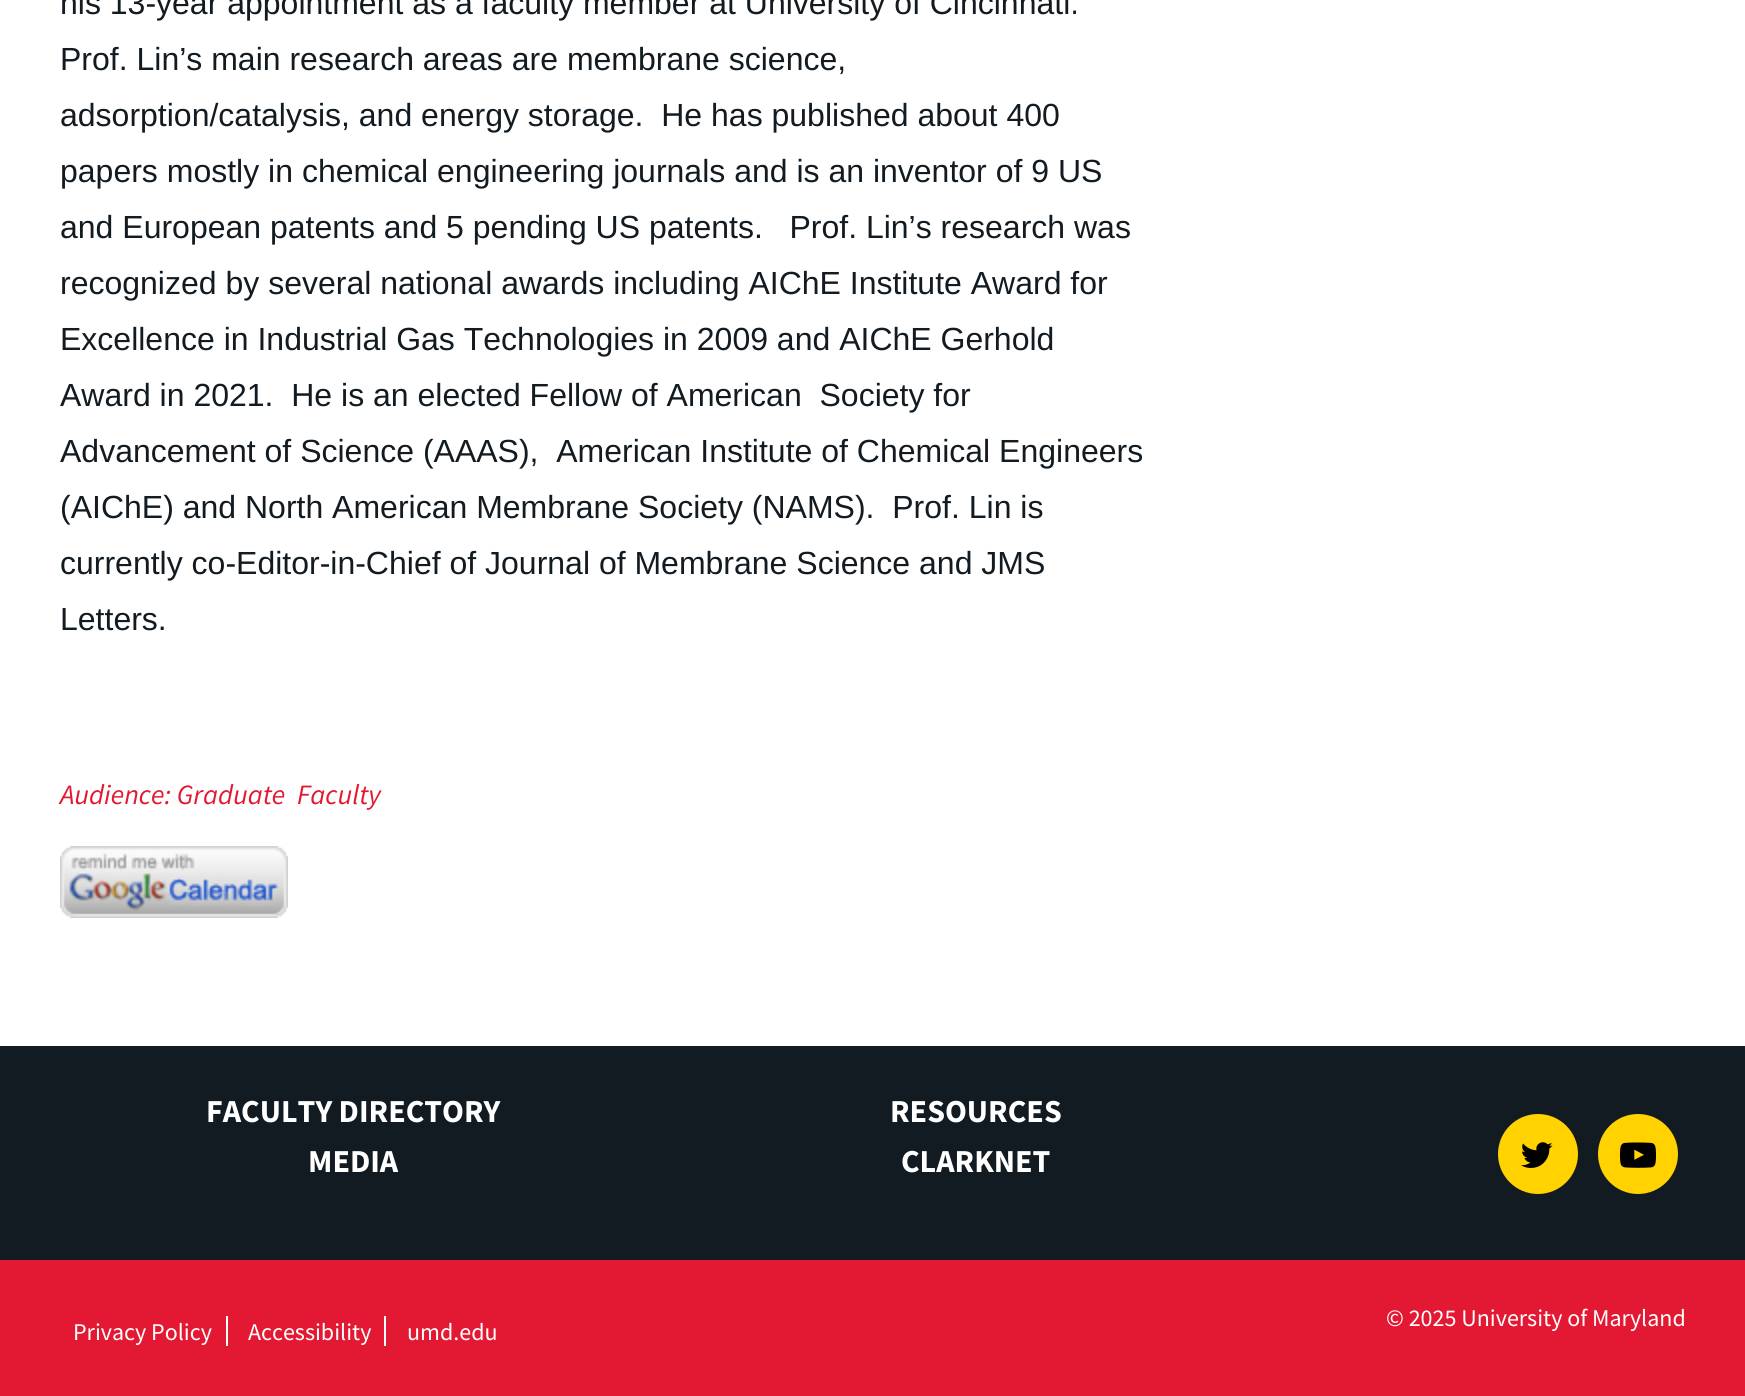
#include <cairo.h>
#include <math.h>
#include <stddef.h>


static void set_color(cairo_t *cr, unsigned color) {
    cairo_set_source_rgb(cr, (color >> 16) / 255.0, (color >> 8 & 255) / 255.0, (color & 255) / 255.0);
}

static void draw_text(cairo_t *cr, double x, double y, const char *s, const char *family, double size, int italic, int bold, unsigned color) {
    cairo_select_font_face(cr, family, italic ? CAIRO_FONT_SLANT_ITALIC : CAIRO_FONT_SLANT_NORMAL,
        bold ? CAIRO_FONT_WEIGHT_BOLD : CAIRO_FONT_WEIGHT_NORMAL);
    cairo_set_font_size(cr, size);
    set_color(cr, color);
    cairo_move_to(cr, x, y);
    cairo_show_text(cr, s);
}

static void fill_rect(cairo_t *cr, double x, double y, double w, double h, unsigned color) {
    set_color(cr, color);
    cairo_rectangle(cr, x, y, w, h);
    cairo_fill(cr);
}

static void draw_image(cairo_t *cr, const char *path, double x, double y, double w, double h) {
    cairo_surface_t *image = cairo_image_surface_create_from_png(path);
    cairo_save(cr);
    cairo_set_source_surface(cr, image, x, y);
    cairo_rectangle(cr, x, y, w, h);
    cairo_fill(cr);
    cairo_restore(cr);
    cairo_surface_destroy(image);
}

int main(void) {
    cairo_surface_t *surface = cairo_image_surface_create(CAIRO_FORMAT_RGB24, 1745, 1396);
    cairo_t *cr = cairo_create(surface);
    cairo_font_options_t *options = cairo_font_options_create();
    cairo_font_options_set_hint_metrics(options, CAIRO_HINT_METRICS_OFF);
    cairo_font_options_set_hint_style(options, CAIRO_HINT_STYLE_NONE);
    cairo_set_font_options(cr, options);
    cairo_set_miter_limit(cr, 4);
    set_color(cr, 0xFFFFFF);
    cairo_paint(cr);
    draw_text(cr, 60, 14, "his 13-year appointment as a faculty member at University of Cincinnati.", "Liberation Sans", 32, 0, 0, 0x121B21);
    draw_text(cr, 60, 70, "Prof. Lin’s main research areas are membrane science,", "Liberation Sans", 32, 0, 0, 0x121B21);
    draw_text(cr, 60, 126, "adsorption/catalysis, and energy storage.  He has published about 400", "Liberation Sans", 32, 0, 0, 0x121B21);
    draw_text(cr, 60, 182, "papers mostly in chemical engineering journals and is an inventor of 9 US", "Liberation Sans", 32, 0, 0, 0x121B21);
    draw_text(cr, 60, 238, "and European patents and 5 pending US patents.   Prof. Lin’s research was", "Liberation Sans", 32, 0, 0, 0x121B21);
    draw_text(cr, 60, 294, "recognized by several national awards including AIChE Institute Award for", "Liberation Sans", 32, 0, 0, 0x121B21);
    draw_text(cr, 60, 350, "Excellence in Industrial Gas Technologies in 2009 and AIChE Gerhold", "Liberation Sans", 32, 0, 0, 0x121B21);
    draw_text(cr, 60, 406, "Award in 2021.  He is an elected Fellow of American  Society for", "Liberation Sans", 32, 0, 0, 0x121B21);
    draw_text(cr, 60, 462, "Advancement of Science (AAAS),  American Institute of Chemical Engineers", "Liberation Sans", 32, 0, 0, 0x121B21);
    draw_text(cr, 60, 518, "(AIChE) and North American Membrane Society (NAMS).  Prof. Lin is", "Liberation Sans", 32, 0, 0, 0x121B21);
    draw_text(cr, 60, 574, "currently co-Editor-in-Chief of Journal of Membrane Science and JMS", "Liberation Sans", 32, 0, 0, 0x121B21);
    draw_text(cr, 60, 630, "Letters.", "Liberation Sans", 32, 0, 0, 0x121B21);
    draw_text(cr, 60, 804, "Audience: Graduate", "Source Sans Pro", 28, 1, 0, 0xE31933);
    draw_text(cr, 297, 804, "Faculty", "Source Sans Pro", 28, 1, 0, 0xE31933);
    draw_image(cr, "assets/img1.png", 60, 846, 228, 72);
    fill_rect(cr, 0, 1046, 1745, 214, 0x121B21);
    draw_text(cr, 206, 1122, "FACULTY DIRECTORY", "Source Sans Pro", 32, 0, 1, 0xFFFFFF);
    draw_text(cr, 890, 1122, "RESOURCES", "Source Sans Pro", 32, 0, 1, 0xFFFFFF);
    draw_text(cr, 308, 1172, "MEDIA", "Source Sans Pro", 32, 0, 1, 0xFFFFFF);
    draw_text(cr, 901, 1172, "CLARKNET", "Source Sans Pro", 32, 0, 1, 0xFFFFFF);
    set_color(cr, 0xFFD200);
    cairo_new_path(cr);
    cairo_arc(cr, 1538, 1154, 40, 0, 2 * M_PI);
    cairo_fill(cr);
    draw_image(cr, "assets/img2.png", 1521, 1142, 32, 26);
    cairo_arc(cr, 1638, 1154, 40, 0, 2 * M_PI);
    cairo_fill(cr);
    draw_image(cr, "assets/img3.png", 1620, 1142, 36, 26);
    fill_rect(cr, 0, 1260, 1745, 136, 0xE31933);
    draw_text(cr, 1386, 1326, "© 2025 University of Maryland", "Source Sans Pro", 24, 0, 0, 0xFFFFFF);
    draw_text(cr, 73, 1340, "Privacy Policy", "Source Sans Pro", 24, 0, 0, 0xFFFFFF);
    fill_rect(cr, 226, 1316, 2, 30, 0xFFFFFF);
    draw_text(cr, 248, 1340, "Accessibility", "Source Sans Pro", 24, 0, 0, 0xFFFFFF);
    fill_rect(cr, 384, 1316, 2, 30, 0xFFFFFF);
    draw_text(cr, 407, 1340, "umd.edu", "Source Sans Pro", 24, 0, 0, 0xFFFFFF);
    cairo_surface_write_to_png(surface, "output.png");
    cairo_font_options_destroy(options);
    cairo_destroy(cr);
    cairo_surface_destroy(surface);
    return 0;
}
